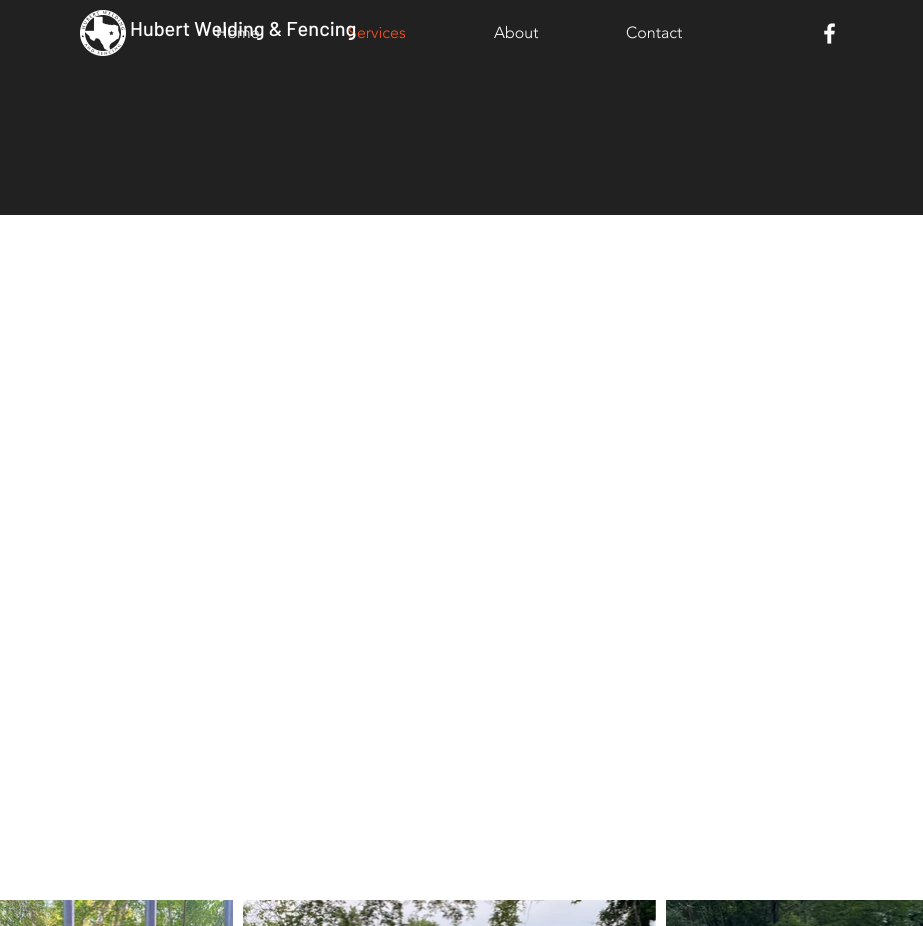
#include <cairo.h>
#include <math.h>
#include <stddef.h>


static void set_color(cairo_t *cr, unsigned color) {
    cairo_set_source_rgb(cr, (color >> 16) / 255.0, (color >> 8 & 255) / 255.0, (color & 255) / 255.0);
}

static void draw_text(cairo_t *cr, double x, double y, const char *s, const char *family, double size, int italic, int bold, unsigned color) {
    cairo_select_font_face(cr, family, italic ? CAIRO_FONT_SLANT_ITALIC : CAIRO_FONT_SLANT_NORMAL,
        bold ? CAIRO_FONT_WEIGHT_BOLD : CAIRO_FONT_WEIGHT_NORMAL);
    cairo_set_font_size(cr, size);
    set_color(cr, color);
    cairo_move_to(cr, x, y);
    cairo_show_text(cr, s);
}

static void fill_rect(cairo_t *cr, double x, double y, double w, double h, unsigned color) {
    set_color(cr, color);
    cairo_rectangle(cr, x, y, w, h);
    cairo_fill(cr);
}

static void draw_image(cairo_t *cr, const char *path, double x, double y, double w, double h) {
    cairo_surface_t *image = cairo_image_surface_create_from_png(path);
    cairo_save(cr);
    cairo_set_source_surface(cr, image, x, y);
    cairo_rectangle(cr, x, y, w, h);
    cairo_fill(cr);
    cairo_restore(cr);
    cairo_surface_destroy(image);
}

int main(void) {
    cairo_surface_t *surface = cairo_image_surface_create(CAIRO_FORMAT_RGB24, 923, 926);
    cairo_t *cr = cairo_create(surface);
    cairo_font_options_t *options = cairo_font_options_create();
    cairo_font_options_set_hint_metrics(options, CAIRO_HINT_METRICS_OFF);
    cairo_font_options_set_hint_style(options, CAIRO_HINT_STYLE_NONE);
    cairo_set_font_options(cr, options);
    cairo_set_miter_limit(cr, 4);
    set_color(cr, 0x212121);
    cairo_paint(cr);
    draw_image(cr, "assets/img1.png", 80, 10, 46, 46);
    draw_text(cr, 216, 38, "Home", "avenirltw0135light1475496 Light", 16, 0, 0, 0xFFFFFF);
    draw_text(cr, 348, 38, "Services", "avenirltw0135light1475496 Light", 16, 0, 0, 0xFF5020);
    draw_text(cr, 130, 36, "Hubert Welding & Fencing", "Barlow Medium", 20, 0, 0, 0xFFFFFF);
    draw_text(cr, 494, 38, "About", "avenirltw0135light1475496 Light", 16, 0, 0, 0xFFFFFF);
    draw_text(cr, 626, 38, "Contact", "avenirltw0135light1475496 Light", 16, 0, 0, 0xFFFFFF);
    draw_image(cr, "assets/img2.png", 824, 23, 11, 21);
    fill_rect(cr, 0, 215, 923, 711, 0xFFFFFF);
    draw_image(cr, "assets/img3.png", 0, 900, 233, 26);
    draw_image(cr, "assets/img4.png", 243, 900, 413, 26);
    draw_image(cr, "assets/img5.png", 666, 900, 257, 26);
    cairo_surface_write_to_png(surface, "output.png");
    cairo_font_options_destroy(options);
    cairo_destroy(cr);
    cairo_surface_destroy(surface);
    return 0;
}
